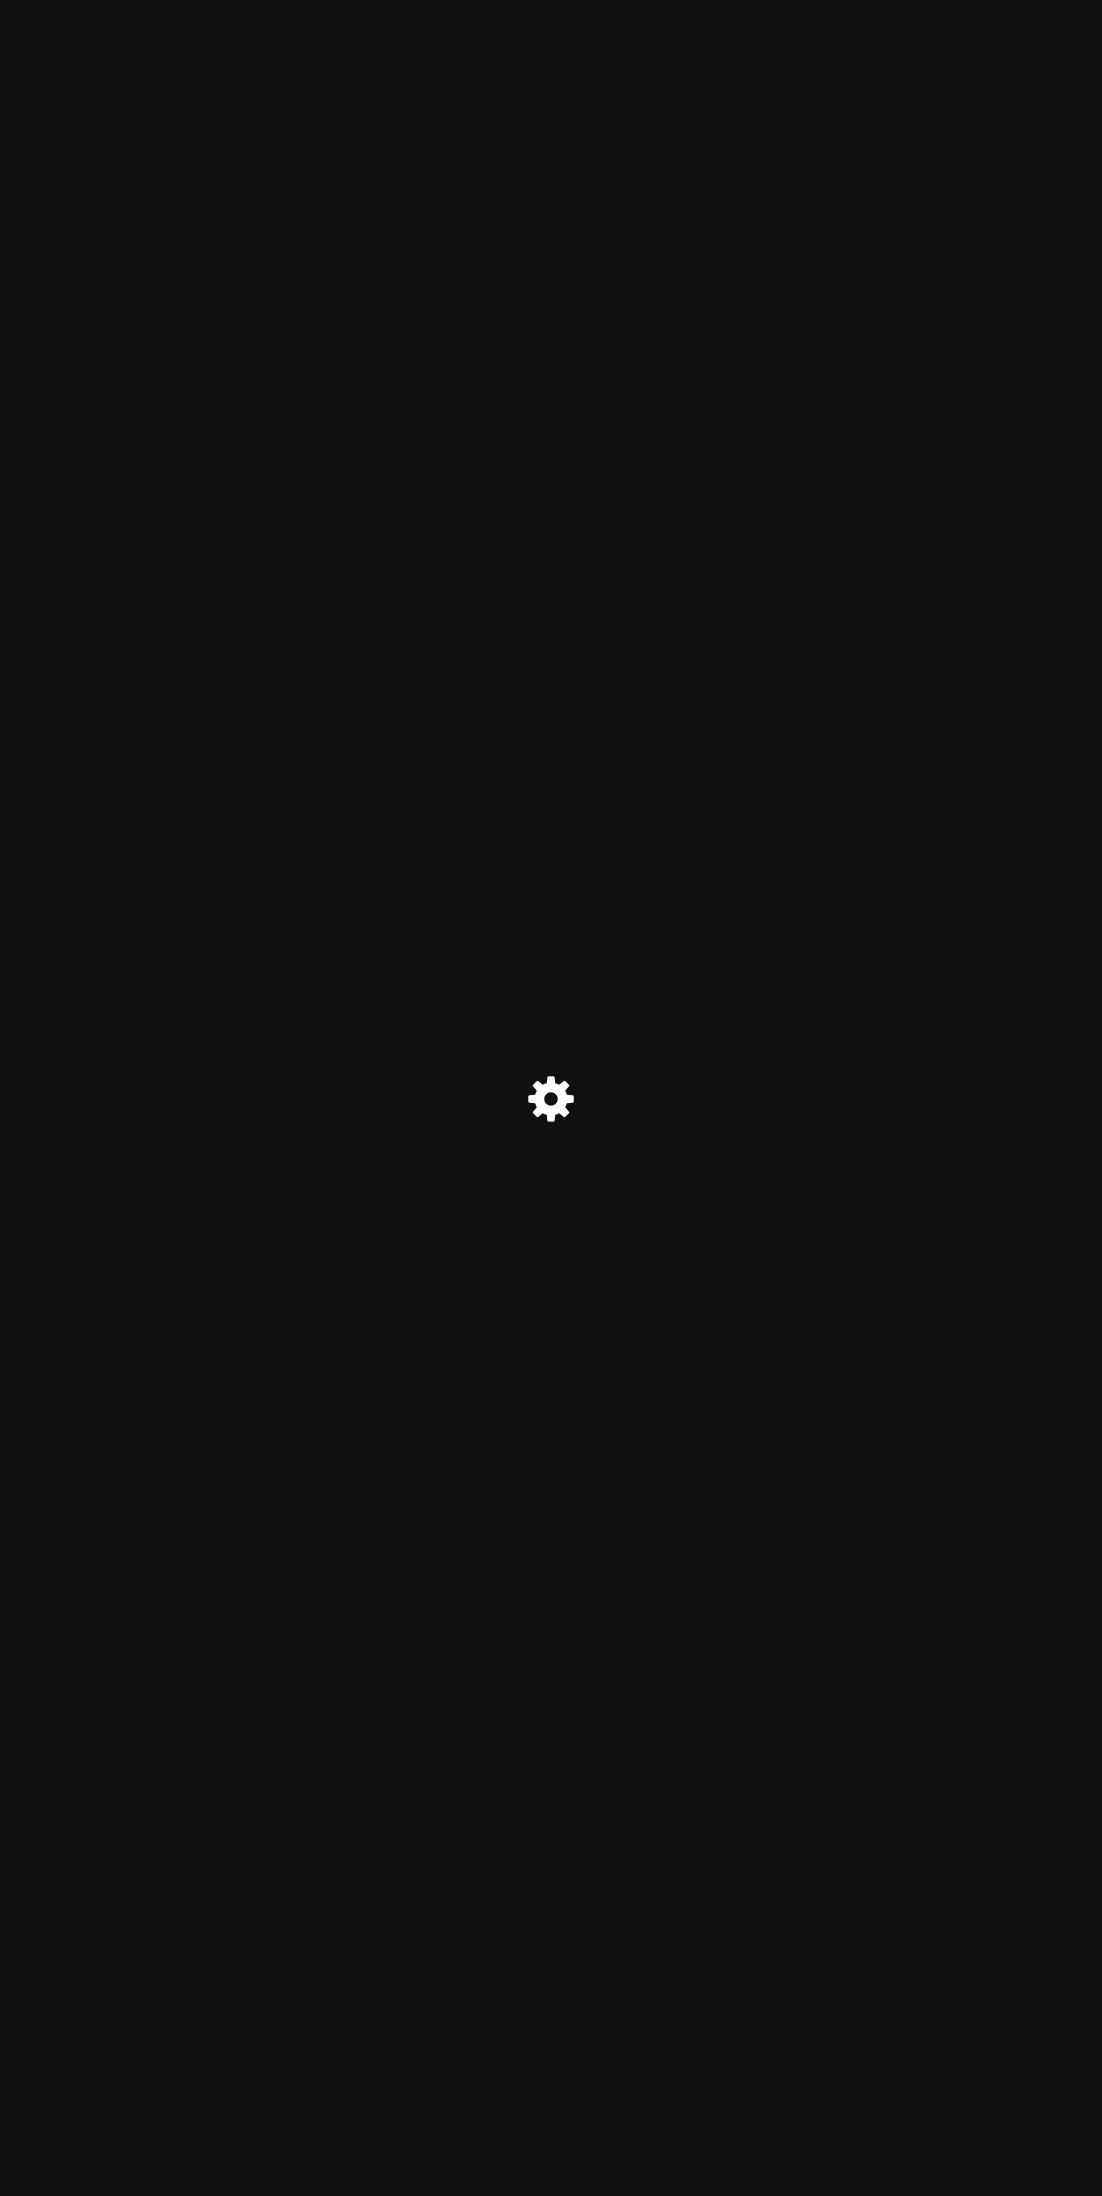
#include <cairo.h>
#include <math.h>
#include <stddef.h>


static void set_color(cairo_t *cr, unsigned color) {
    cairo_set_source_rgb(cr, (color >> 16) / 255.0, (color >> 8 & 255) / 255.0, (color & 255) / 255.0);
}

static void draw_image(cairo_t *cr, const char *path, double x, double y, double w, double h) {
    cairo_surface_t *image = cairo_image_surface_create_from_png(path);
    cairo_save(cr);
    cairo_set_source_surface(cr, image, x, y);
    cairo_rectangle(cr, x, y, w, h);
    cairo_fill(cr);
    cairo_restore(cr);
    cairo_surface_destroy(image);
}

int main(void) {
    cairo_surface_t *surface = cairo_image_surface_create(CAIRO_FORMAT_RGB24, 1102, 2196);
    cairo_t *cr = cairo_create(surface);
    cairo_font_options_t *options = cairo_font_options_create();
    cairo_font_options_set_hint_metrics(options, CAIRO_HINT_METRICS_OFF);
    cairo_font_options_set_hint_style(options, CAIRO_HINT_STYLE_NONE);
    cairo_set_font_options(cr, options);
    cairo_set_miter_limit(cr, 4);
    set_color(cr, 0x111111);
    cairo_paint(cr);
    draw_image(cr, "assets/img1.png", 528, 1076, 46, 46);
    cairo_surface_write_to_png(surface, "output.png");
    cairo_font_options_destroy(options);
    cairo_destroy(cr);
    cairo_surface_destroy(surface);
    return 0;
}
